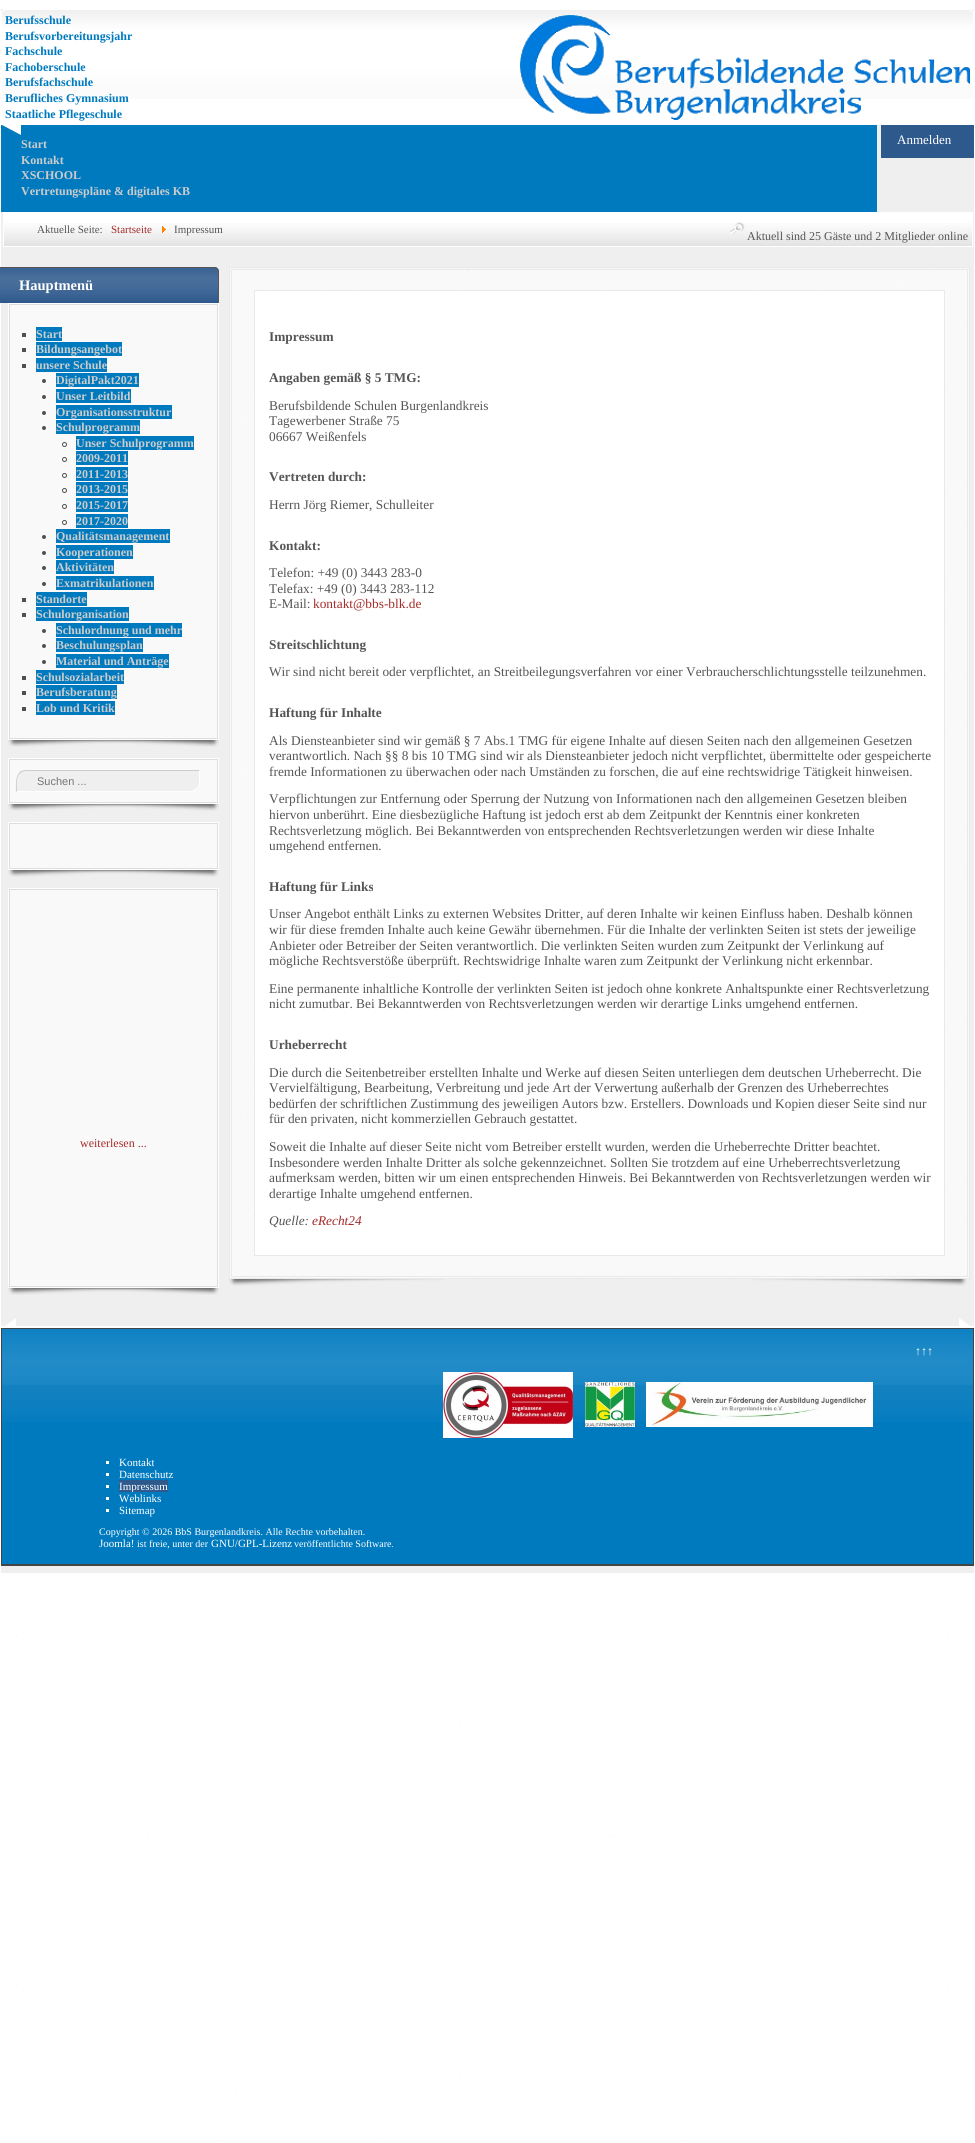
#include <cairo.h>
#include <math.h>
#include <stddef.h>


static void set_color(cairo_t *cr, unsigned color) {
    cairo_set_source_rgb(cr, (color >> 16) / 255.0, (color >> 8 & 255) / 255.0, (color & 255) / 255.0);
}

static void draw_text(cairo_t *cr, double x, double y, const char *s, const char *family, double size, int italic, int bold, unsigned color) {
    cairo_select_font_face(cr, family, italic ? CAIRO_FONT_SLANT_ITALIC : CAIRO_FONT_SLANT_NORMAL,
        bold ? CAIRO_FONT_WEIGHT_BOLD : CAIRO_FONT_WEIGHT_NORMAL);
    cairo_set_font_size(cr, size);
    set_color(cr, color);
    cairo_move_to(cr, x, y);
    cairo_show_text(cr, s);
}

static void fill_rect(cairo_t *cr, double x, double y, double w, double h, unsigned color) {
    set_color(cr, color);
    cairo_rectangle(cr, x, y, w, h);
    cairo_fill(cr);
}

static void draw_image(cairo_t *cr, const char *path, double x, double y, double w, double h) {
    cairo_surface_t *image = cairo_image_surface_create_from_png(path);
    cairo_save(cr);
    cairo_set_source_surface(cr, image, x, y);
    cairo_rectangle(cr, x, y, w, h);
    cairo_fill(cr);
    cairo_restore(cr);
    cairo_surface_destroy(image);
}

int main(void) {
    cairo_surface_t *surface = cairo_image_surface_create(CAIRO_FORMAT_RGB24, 975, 2143);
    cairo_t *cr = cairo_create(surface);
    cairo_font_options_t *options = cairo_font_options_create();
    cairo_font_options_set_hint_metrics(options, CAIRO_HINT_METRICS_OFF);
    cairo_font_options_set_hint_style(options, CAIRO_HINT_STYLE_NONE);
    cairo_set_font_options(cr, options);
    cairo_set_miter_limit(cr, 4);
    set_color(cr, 0xFFFFFF);
    cairo_paint(cr);
    draw_image(cr, "assets/img1.png", 5, 0, 967, 2142);
    set_color(cr, 0xEFEFEF);
    cairo_rectangle(cr, 0.5, 8.5, 974, 1318);
    cairo_fill_preserve(cr);
    set_color(cr, 0xFFFFFF);
    cairo_set_line_width(cr, 1);
    cairo_stroke(cr);
    cairo_new_path(cr);
    cairo_move_to(cr, 6, 9);
    cairo_line_to(cr, 969, 9);
    cairo_curve_to(cr, 972, 9, 974, 11, 974, 14);
    cairo_line_to(cr, 974, 125);
    cairo_line_to(cr, 1, 125);
    cairo_line_to(cr, 1, 14);
    cairo_curve_to(cr, 1, 11, 3, 9, 6, 9);
    cairo_close_path(cr);
    cairo_fill(cr);
    draw_image(cr, "assets/img2.png", 1, 10, 973, 89);
    cairo_set_fill_rule(cr, CAIRO_FILL_RULE_EVEN_ODD);
    cairo_new_path(cr);
    cairo_move_to(cr, 6, 9);
    cairo_line_to(cr, 969, 9);
    cairo_curve_to(cr, 972, 9, 974, 11, 974, 14);
    cairo_line_to(cr, 974, 125);
    cairo_line_to(cr, 1, 125);
    cairo_line_to(cr, 1, 14);
    cairo_curve_to(cr, 1, 11, 3, 9, 6, 9);
    cairo_close_path(cr);
    cairo_move_to(cr, 6, 10);
    cairo_line_to(cr, 969, 10);
    cairo_curve_to(cr, 971, 10, 973, 12, 973, 14);
    cairo_line_to(cr, 973, 125);
    cairo_line_to(cr, 2, 125);
    cairo_line_to(cr, 2, 14);
    cairo_curve_to(cr, 2, 12, 4, 10, 6, 10);
    cairo_close_path(cr);
    cairo_fill(cr);
    draw_text(cr, 5, 24, "Berufsschule", "Liberation Serif", 12, 0, 1, 0x007ABF);
    draw_text(cr, 5, 40, "Berufsvorbereitungsjahr", "Liberation Serif", 12, 0, 1, 0x007ABF);
    draw_text(cr, 5, 55, "Fachschule", "Liberation Serif", 12, 0, 1, 0x007ABF);
    draw_text(cr, 5, 71, "Fachoberschule", "Liberation Serif", 12, 0, 1, 0x007ABF);
    draw_text(cr, 5, 86, "Berufsfachschule", "Liberation Serif", 12, 0, 1, 0x007ABF);
    draw_text(cr, 5, 102, "Berufliches Gymnasium", "Liberation Serif", 12, 0, 1, 0x007ABF);
    draw_text(cr, 5, 118, "Staatliche Pflegeschule", "Liberation Serif", 12, 0, 1, 0x007ABF);
    draw_image(cr, "assets/img3.png", 520, 15, 450, 105);
    fill_rect(cr, 1, 125, 876, 87, 0x007ABF);
    set_color(cr, 0xFFFFFF);
    cairo_set_fill_rule(cr, CAIRO_FILL_RULE_WINDING);
    cairo_new_path(cr);
    cairo_move_to(cr, 2, 125);
    cairo_line_to(cr, 21, 125);
    cairo_line_to(cr, 21, 135);
    cairo_close_path(cr);
    cairo_fill(cr);
    draw_text(cr, 21, 148, "Start", "Liberation Serif", 12, 0, 1, 0xCCCCCC);
    draw_text(cr, 21, 164, "Kontakt", "Liberation Serif", 12, 0, 1, 0xCCCCCC);
    draw_text(cr, 21, 179, "XSCHOOL", "Liberation Serif", 12, 0, 1, 0xCCCCCC);
    draw_text(cr, 21, 195, "Vertretungspläne & digitales KB", "Liberation Serif", 12, 0, 1, 0xCCCCCC);
    fill_rect(cr, 881, 125, 93, 33, 0x2E598C);
    draw_text(cr, 897, 144, "Anmelden", "Liberation Serif", 13, 0, 0, 0xFFFFFF);
    fill_rect(cr, 4, 213, 968, 33, 0xFFFFFF);
    draw_image(cr, "assets/img4.png", 4, 223, 968, 23);
    cairo_rectangle(cr, 3.5, 212.5, 969, 34);
    cairo_stroke(cr);
    draw_text(cr, 37, 233, "Aktuelle Seite:", "Liberation Serif", 11, 0, 0, 0x555555);
    draw_text(cr, 111, 233, "Startseite", "Liberation Serif", 11, 0, 0, 0xA52A2A);
    draw_image(cr, "assets/img5.png", 162, 226, 4, 7);
    draw_text(cr, 174, 233, "Impressum", "Liberation Serif", 11, 0, 0, 0x555555);
    draw_image(cr, "assets/img6.png", 729, 222, 16, 12);
    draw_text(cr, 747, 240, "Aktuell sind 25 Gäste und 2 Mitglieder online", "Liberation Serif", 12, 0, 0, 0x555555);
    set_color(cr, 0x2E598C);
    cairo_new_path(cr);
    cairo_move_to(cr, 0, 267);
    cairo_line_to(cr, 214, 267);
    cairo_curve_to(cr, 217, 267, 219, 269, 219, 272);
    cairo_line_to(cr, 219, 303);
    cairo_line_to(cr, -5, 303);
    cairo_line_to(cr, -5, 272);
    cairo_curve_to(cr, -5, 269, -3, 267, 0, 267);
    cairo_close_path(cr);
    cairo_fill(cr);
    draw_image(cr, "assets/img7.png", 0, 268, 219, 33);
    set_color(cr, 0x555555);
    cairo_new_path(cr);
    cairo_move_to(cr, -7, 267);
    cairo_curve_to(cr, -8, 267, -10, 268, -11, 268);
    cairo_line_to(cr, -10, 269);
    cairo_line_to(cr, -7, 268);
    cairo_line_to(cr, 214, 268);
    cairo_line_to(cr, 217, 269);
    cairo_line_to(cr, 218, 268);
    cairo_curve_to(cr, 217, 268, 216, 267, 214, 267);
    cairo_close_path(cr);
    cairo_fill(cr);
    cairo_new_path(cr);
    cairo_move_to(cr, 218, 303);
    cairo_line_to(cr, 219, 303);
    cairo_line_to(cr, 219, 272);
    cairo_curve_to(cr, 219, 270.5, 218.5, 269, 217.5, 268.5);
    cairo_line_to(cr, 217, 269);
    cairo_curve_to(cr, 217.5, 270, 218, 271, 218, 272);
    cairo_close_path(cr);
    cairo_fill(cr);
    draw_text(cr, 19, 290, "Hauptmenü", "Liberation Serif", 14.5, 0, 1, 0xFFFFFF);
    cairo_rectangle(cr, 8.5, 303.5, 210, 436);
    cairo_stroke(cr);
    set_color(cr, 0xF9F9F9);
    cairo_rectangle(cr, 9.5, 304.5, 208, 434);
    cairo_fill_preserve(cr);
    set_color(cr, 0xDDDDDD);
    cairo_stroke(cr);
    fill_rect(cr, 22, 333, 4, 4, 0x505050);
    fill_rect(cr, 36, 327, 26, 14, 0x007ABF);
    draw_text(cr, 36, 338, "Start", "Liberation Serif", 12, 0, 1, 0xCCCCCC);
    fill_rect(cr, 22, 348, 4, 4, 0x505050);
    fill_rect(cr, 36, 342, 86, 14, 0x007ABF);
    draw_text(cr, 36, 353, "Bildungsangebot", "Liberation Serif", 12, 0, 1, 0xCCCCCC);
    fill_rect(cr, 22, 364, 4, 4, 0x505050);
    fill_rect(cr, 36, 358, 71, 14, 0x007ABF);
    draw_text(cr, 36, 369, "unsere Schule", "Liberation Serif", 12, 0, 1, 0xCCCCCC);
    set_color(cr, 0x505050);
    cairo_new_path(cr);
    cairo_arc(cr, 44, 381, 2, 0, 2 * M_PI);
    cairo_fill(cr);
    fill_rect(cr, 56, 373, 83, 14, 0x007ABF);
    draw_text(cr, 56, 384, "DigitalPakt2021", "Liberation Serif", 12, 0, 1, 0xCCCCCC);
    set_color(cr, 0x505050);
    cairo_new_path(cr);
    cairo_arc(cr, 44, 397, 2, 0, 2 * M_PI);
    cairo_fill(cr);
    fill_rect(cr, 56, 389, 75, 14, 0x007ABF);
    draw_text(cr, 56, 400, "Unser Leitbild", "Liberation Serif", 12, 0, 1, 0xCCCCCC);
    set_color(cr, 0x505050);
    cairo_new_path(cr);
    cairo_arc(cr, 44, 413, 2, 0, 2 * M_PI);
    cairo_fill(cr);
    fill_rect(cr, 56, 405, 116, 14, 0x007ABF);
    draw_text(cr, 56, 416, "Organisationsstruktur", "Liberation Serif", 12, 0, 1, 0xCCCCCC);
    set_color(cr, 0x505050);
    cairo_new_path(cr);
    cairo_arc(cr, 44, 428, 2, 0, 2 * M_PI);
    cairo_fill(cr);
    fill_rect(cr, 56, 420, 84, 14, 0x007ABF);
    draw_text(cr, 56, 431, "Schulprogramm", "Liberation Serif", 12, 0, 1, 0xCCCCCC);
    cairo_new_path(cr);
    cairo_arc(cr, 64.5, 444.5, 2, 0, 2 * M_PI);
    set_color(cr, 0x505050);
    cairo_stroke(cr);
    fill_rect(cr, 76, 436, 118, 14, 0x007ABF);
    draw_text(cr, 76, 447, "Unser Schulprogramm", "Liberation Serif", 12, 0, 1, 0xCCCCCC);
    cairo_new_path(cr);
    cairo_arc(cr, 64.5, 459.5, 2, 0, 2 * M_PI);
    set_color(cr, 0x505050);
    cairo_stroke(cr);
    fill_rect(cr, 76, 451, 52, 14, 0x007ABF);
    draw_text(cr, 76, 462, "2009-2011", "Liberation Serif", 12, 0, 1, 0xCCCCCC);
    cairo_new_path(cr);
    cairo_arc(cr, 64.5, 475.5, 2, 0, 2 * M_PI);
    set_color(cr, 0x505050);
    cairo_stroke(cr);
    fill_rect(cr, 76, 467, 52, 14, 0x007ABF);
    draw_text(cr, 76, 478, "2011-2013", "Liberation Serif", 12, 0, 1, 0xCCCCCC);
    cairo_new_path(cr);
    cairo_arc(cr, 64.5, 490.5, 2, 0, 2 * M_PI);
    set_color(cr, 0x505050);
    cairo_stroke(cr);
    fill_rect(cr, 76, 482, 52, 14, 0x007ABF);
    draw_text(cr, 76, 493, "2013-2015", "Liberation Serif", 12, 0, 1, 0xCCCCCC);
    cairo_new_path(cr);
    cairo_arc(cr, 64.5, 506.5, 2, 0, 2 * M_PI);
    set_color(cr, 0x505050);
    cairo_stroke(cr);
    fill_rect(cr, 76, 498, 52, 14, 0x007ABF);
    draw_text(cr, 76, 509, "2015-2017", "Liberation Serif", 12, 0, 1, 0xCCCCCC);
    cairo_new_path(cr);
    cairo_arc(cr, 64.5, 522.5, 2, 0, 2 * M_PI);
    set_color(cr, 0x505050);
    cairo_stroke(cr);
    fill_rect(cr, 76, 514, 52, 14, 0x007ABF);
    draw_text(cr, 76, 525, "2017-2020", "Liberation Serif", 12, 0, 1, 0xCCCCCC);
    set_color(cr, 0x505050);
    cairo_new_path(cr);
    cairo_arc(cr, 44, 537, 2, 0, 2 * M_PI);
    cairo_fill(cr);
    fill_rect(cr, 56, 529, 114, 14, 0x007ABF);
    draw_text(cr, 56, 540, "Qualitätsmanagement", "Liberation Serif", 12, 0, 1, 0xCCCCCC);
    set_color(cr, 0x505050);
    cairo_new_path(cr);
    cairo_arc(cr, 44, 553, 2, 0, 2 * M_PI);
    cairo_fill(cr);
    fill_rect(cr, 56, 545, 77, 14, 0x007ABF);
    draw_text(cr, 56, 556, "Kooperationen", "Liberation Serif", 12, 0, 1, 0xCCCCCC);
    set_color(cr, 0x505050);
    cairo_new_path(cr);
    cairo_arc(cr, 44, 568, 2, 0, 2 * M_PI);
    cairo_fill(cr);
    fill_rect(cr, 56, 560, 58, 14, 0x007ABF);
    draw_text(cr, 56, 571, "Aktivitäten", "Liberation Serif", 12, 0, 1, 0xCCCCCC);
    set_color(cr, 0x505050);
    cairo_new_path(cr);
    cairo_arc(cr, 44, 584, 2, 0, 2 * M_PI);
    cairo_fill(cr);
    fill_rect(cr, 56, 576, 98, 14, 0x007ABF);
    draw_text(cr, 56, 587, "Exmatrikulationen", "Liberation Serif", 12, 0, 1, 0xCCCCCC);
    fill_rect(cr, 22, 598, 4, 4, 0x505050);
    fill_rect(cr, 36, 592, 51, 14, 0x007ABF);
    draw_text(cr, 36, 603, "Standorte", "Liberation Serif", 12, 0, 1, 0xCCCCCC);
    fill_rect(cr, 22, 613, 4, 4, 0x505050);
    fill_rect(cr, 36, 607, 93, 14, 0x007ABF);
    draw_text(cr, 36, 618, "Schulorganisation", "Liberation Serif", 12, 0, 1, 0xCCCCCC);
    set_color(cr, 0x505050);
    cairo_new_path(cr);
    cairo_arc(cr, 44, 631, 2, 0, 2 * M_PI);
    cairo_fill(cr);
    fill_rect(cr, 56, 623, 126, 14, 0x007ABF);
    draw_text(cr, 56, 634, "Schulordnung und mehr", "Liberation Serif", 12, 0, 1, 0xCCCCCC);
    set_color(cr, 0x505050);
    cairo_new_path(cr);
    cairo_arc(cr, 44, 646, 2, 0, 2 * M_PI);
    cairo_fill(cr);
    fill_rect(cr, 56, 638, 87, 14, 0x007ABF);
    draw_text(cr, 56, 649, "Beschulungsplan", "Liberation Serif", 12, 0, 1, 0xCCCCCC);
    set_color(cr, 0x505050);
    cairo_new_path(cr);
    cairo_arc(cr, 44, 662, 2, 0, 2 * M_PI);
    cairo_fill(cr);
    fill_rect(cr, 56, 654, 113, 14, 0x007ABF);
    draw_text(cr, 56, 665, "Material und Anträge", "Liberation Serif", 12, 0, 1, 0xCCCCCC);
    fill_rect(cr, 22, 676, 4, 4, 0x505050);
    fill_rect(cr, 36, 670, 88, 14, 0x007ABF);
    draw_text(cr, 36, 681, "Schulsozialarbeit", "Liberation Serif", 12, 0, 1, 0xCCCCCC);
    fill_rect(cr, 22, 691, 4, 4, 0x505050);
    fill_rect(cr, 36, 685, 81, 14, 0x007ABF);
    draw_text(cr, 36, 696, "Berufsberatung", "Liberation Serif", 12, 0, 1, 0xCCCCCC);
    fill_rect(cr, 22, 707, 4, 4, 0x505050);
    fill_rect(cr, 36, 701, 79, 14, 0x007ABF);
    draw_text(cr, 36, 712, "Lob und Kritik", "Liberation Serif", 12, 0, 1, 0xCCCCCC);
    draw_image(cr, "assets/img8.png", 8, 740, 211, 7);
    draw_image(cr, "assets/img9.png", 8, 740, 211, 7);
    cairo_rectangle(cr, 8.5, 758.5, 210, 45);
    set_color(cr, 0xFFFFFF);
    cairo_stroke(cr);
    set_color(cr, 0xF9F9F9);
    cairo_rectangle(cr, 9.5, 759.5, 208, 43);
    cairo_fill_preserve(cr);
    set_color(cr, 0xDDDDDD);
    cairo_stroke(cr);
    set_color(cr, 0xEFEFEF);
    cairo_new_path(cr);
    cairo_move_to(cr, 26, 770);
    cairo_line_to(cr, 200, 770);
    cairo_line_to(cr, 200, 782);
    cairo_curve_to(cr, 200, 787.5, 195.5, 792, 190, 792);
    cairo_line_to(cr, 16, 792);
    cairo_line_to(cr, 16, 780);
    cairo_curve_to(cr, 16, 774.5, 20.5, 770, 26, 770);
    cairo_close_path(cr);
    cairo_fill(cr);
    set_color(cr, 0xCCCCCC);
    cairo_new_path(cr);
    cairo_move_to(cr, 26, 770);
    cairo_curve_to(cr, 23, 770, 20, 771, 19, 773);
    cairo_line_to(cr, 20, 774);
    cairo_curve_to(cr, 21, 772, 23, 771, 26, 771);
    cairo_line_to(cr, 199, 771);
    cairo_line_to(cr, 200, 770);
    cairo_close_path(cr);
    cairo_fill(cr);
    set_color(cr, 0xFFFFFF);
    cairo_new_path(cr);
    cairo_move_to(cr, 200, 770);
    cairo_line_to(cr, 199, 771);
    cairo_line_to(cr, 199, 782);
    cairo_curve_to(cr, 199, 784.5, 198, 787, 196.5, 788.5);
    cairo_line_to(cr, 197, 789);
    cairo_curve_to(cr, 199, 787.5, 200, 785, 200, 782);
    cairo_close_path(cr);
    cairo_fill(cr);
    cairo_new_path(cr);
    cairo_move_to(cr, 190, 792);
    cairo_curve_to(cr, 193, 792, 196, 791, 197, 789);
    cairo_line_to(cr, 196, 788);
    cairo_curve_to(cr, 195, 790, 192, 791, 190, 791);
    cairo_line_to(cr, 17, 791);
    cairo_line_to(cr, 16, 792);
    cairo_close_path(cr);
    cairo_fill(cr);
    set_color(cr, 0xCCCCCC);
    cairo_new_path(cr);
    cairo_move_to(cr, 16, 792);
    cairo_curve_to(cr, 16, 786.5, 15, 777.5, 19, 773);
    cairo_line_to(cr, 19.5, 773.5);
    cairo_curve_to(cr, 15.5, 778, 17, 785.5, 17, 791);
    cairo_close_path(cr);
    cairo_fill(cr);
    draw_text(cr, 37, 785, "Suchen ...", "Liberation Sans", 11, 0, 0, 0x757575);
    draw_image(cr, "assets/img8.png", 8, 804, 211, 7);
    draw_image(cr, "assets/img9.png", 8, 804, 211, 7);
    cairo_rectangle(cr, 8.5, 822.5, 210, 47);
    set_color(cr, 0xFFFFFF);
    cairo_stroke(cr);
    set_color(cr, 0xF9F9F9);
    cairo_rectangle(cr, 9.5, 823.5, 208, 45);
    cairo_fill_preserve(cr);
    set_color(cr, 0xDDDDDD);
    cairo_stroke(cr);
    draw_image(cr, "assets/img8.png", 8, 870, 211, 7);
    draw_image(cr, "assets/img9.png", 8, 870, 211, 7);
    cairo_rectangle(cr, 8.5, 888.5, 210, 399);
    set_color(cr, 0xFFFFFF);
    cairo_stroke(cr);
    set_color(cr, 0xF9F9F9);
    cairo_rectangle(cr, 9.5, 889.5, 208, 397);
    cairo_fill_preserve(cr);
    set_color(cr, 0xDDDDDD);
    cairo_stroke(cr);
    draw_text(cr, 80, 1147, "weiterlesen ...", "Liberation Serif", 12, 0, 0, 0xA52A2A);
    draw_image(cr, "assets/img8.png", 8, 1288, 211, 7);
    draw_image(cr, "assets/img9.png", 8, 1288, 211, 7);
    fill_rect(cr, 230, 268, 739, 1010, 0xF9F9F9);
    draw_image(cr, "assets/img10.png", 237, 270, 730, 1008);
    cairo_rectangle(cr, 229.5, 267.5, 740, 1011);
    set_color(cr, 0xE9E9E9);
    cairo_stroke(cr);
    cairo_rectangle(cr, 231.5, 269.5, 736, 1007);
    cairo_stroke(cr);
    set_color(cr, 0xFFFFFF);
    cairo_rectangle(cr, 254.5, 290.5, 690, 965);
    cairo_fill_preserve(cr);
    set_color(cr, 0xE9E9E9);
    cairo_stroke(cr);
    draw_text(cr, 269, 341, "Impressum", "Liberation Serif", 13.35, 0, 1, 0x555555);
    draw_text(cr, 269, 382, "Angaben gemäß § 5 TMG:", "Liberation Serif", 13.35, 0, 1, 0x555555);
    draw_text(cr, 269, 410, "Berufsbildende Schulen Burgenlandkreis", "Liberation Serif", 13.35, 0, 0, 0x555555);
    draw_text(cr, 269, 425, "Tagewerbener Straße 75", "Liberation Serif", 13.35, 0, 0, 0x555555);
    draw_text(cr, 269, 441, "06667 Weißenfels", "Liberation Serif", 13.35, 0, 0, 0x555555);
    draw_text(cr, 269, 481, "Vertreten durch:", "Liberation Serif", 13.35, 0, 1, 0x555555);
    draw_text(cr, 269, 509, "Herrn Jörg Riemer, Schulleiter", "Liberation Serif", 13.35, 0, 0, 0x555555);
    draw_text(cr, 269, 550, "Kontakt:", "Liberation Serif", 13.35, 0, 1, 0x555555);
    draw_text(cr, 269, 577, "Telefon: +49 (0) 3443 283-0", "Liberation Serif", 13.35, 0, 0, 0x555555);
    draw_text(cr, 269, 593, "Telefax: +49 (0) 3443 283-112", "Liberation Serif", 13.35, 0, 0, 0x555555);
    draw_text(cr, 269, 608, "E-Mail:", "Liberation Serif", 13.35, 0, 0, 0x555555);
    draw_text(cr, 313, 608, "kontakt@bbs-blk.de", "Liberation Serif", 13.35, 0, 0, 0xA52A2A);
    draw_text(cr, 269, 649, "Streitschlichtung", "Liberation Serif", 13.35, 0, 1, 0x555555);
    draw_text(cr, 269, 676, "Wir sind nicht bereit oder verpflichtet, an Streitbeilegungsverfahren vor einer Verbraucherschlichtungsstelle teilzunehmen.", "Liberation Serif", 13.35, 0, 0, 0x555555);
    draw_text(cr, 269, 717, "Haftung für Inhalte", "Liberation Serif", 13.35, 0, 1, 0x555555);
    draw_text(cr, 269, 745, "Als Diensteanbieter sind wir gemäß § 7 Abs.1 TMG für eigene Inhalte auf diesen Seiten nach den allgemeinen Gesetzen", "Liberation Serif", 13.35, 0, 0, 0x555555);
    draw_text(cr, 269, 760, "verantwortlich. Nach §§ 8 bis 10 TMG sind wir als Diensteanbieter jedoch nicht verpflichtet, übermittelte oder gespeicherte", "Liberation Serif", 13.35, 0, 0, 0x555555);
    draw_text(cr, 269, 776, "fremde Informationen zu überwachen oder nach Umständen zu forschen, die auf eine rechtswidrige Tätigkeit hinweisen.", "Liberation Serif", 13.35, 0, 0, 0x555555);
    draw_text(cr, 269, 803, "Verpflichtungen zur Entfernung oder Sperrung der Nutzung von Informationen nach den allgemeinen Gesetzen bleiben", "Liberation Serif", 13.35, 0, 0, 0x555555);
    draw_text(cr, 269, 819, "hiervon unberührt. Eine diesbezügliche Haftung ist jedoch erst ab dem Zeitpunkt der Kenntnis einer konkreten", "Liberation Serif", 13.35, 0, 0, 0x555555);
    draw_text(cr, 269, 835, "Rechtsverletzung möglich. Bei Bekanntwerden von entsprechenden Rechtsverletzungen werden wir diese Inhalte", "Liberation Serif", 13.35, 0, 0, 0x555555);
    draw_text(cr, 269, 850, "umgehend entfernen.", "Liberation Serif", 13.35, 0, 0, 0x555555);
    draw_text(cr, 269, 891, "Haftung für Links", "Liberation Serif", 13.35, 0, 1, 0x555555);
    draw_text(cr, 269, 918, "Unser Angebot enthält Links zu externen Websites Dritter, auf deren Inhalte wir keinen Einfluss haben. Deshalb können", "Liberation Serif", 13.35, 0, 0, 0x555555);
    draw_text(cr, 269, 934, "wir für diese fremden Inhalte auch keine Gewähr übernehmen. Für die Inhalte der verlinkten Seiten ist stets der jeweilige", "Liberation Serif", 13.35, 0, 0, 0x555555);
    draw_text(cr, 269, 950, "Anbieter oder Betreiber der Seiten verantwortlich. Die verlinkten Seiten wurden zum Zeitpunkt der Verlinkung auf", "Liberation Serif", 13.35, 0, 0, 0x555555);
    draw_text(cr, 269, 965, "mögliche Rechtsverstöße überprüft. Rechtswidrige Inhalte waren zum Zeitpunkt der Verlinkung nicht erkennbar.", "Liberation Serif", 13.35, 0, 0, 0x555555);
    draw_text(cr, 269, 993, "Eine permanente inhaltliche Kontrolle der verlinkten Seiten ist jedoch ohne konkrete Anhaltspunkte einer Rechtsverletzung", "Liberation Serif", 13.35, 0, 0, 0x555555);
    draw_text(cr, 269, 1008, "nicht zumutbar. Bei Bekanntwerden von Rechtsverletzungen werden wir derartige Links umgehend entfernen.", "Liberation Serif", 13.35, 0, 0, 0x555555);
    draw_text(cr, 269, 1049, "Urheberrecht", "Liberation Serif", 13.35, 0, 1, 0x555555);
    draw_text(cr, 269, 1077, "Die durch die Seitenbetreiber erstellten Inhalte und Werke auf diesen Seiten unterliegen dem deutschen Urheberrecht. Die", "Liberation Serif", 13.35, 0, 0, 0x555555);
    draw_text(cr, 269, 1092, "Vervielfältigung, Bearbeitung, Verbreitung und jede Art der Verwertung außerhalb der Grenzen des Urheberrechtes", "Liberation Serif", 13.35, 0, 0, 0x555555);
    draw_text(cr, 269, 1108, "bedürfen der schriftlichen Zustimmung des jeweiligen Autors bzw. Erstellers. Downloads und Kopien dieser Seite sind nur", "Liberation Serif", 13.35, 0, 0, 0x555555);
    draw_text(cr, 269, 1123, "für den privaten, nicht kommerziellen Gebrauch gestattet.", "Liberation Serif", 13.35, 0, 0, 0x555555);
    draw_text(cr, 269, 1151, "Soweit die Inhalte auf dieser Seite nicht vom Betreiber erstellt wurden, werden die Urheberrechte Dritter beachtet.", "Liberation Serif", 13.35, 0, 0, 0x555555);
    draw_text(cr, 269, 1167, "Insbesondere werden Inhalte Dritter als solche gekennzeichnet. Sollten Sie trotzdem auf eine Urheberrechtsverletzung", "Liberation Serif", 13.35, 0, 0, 0x555555);
    draw_text(cr, 269, 1182, "aufmerksam werden, bitten wir um einen entsprechenden Hinweis. Bei Bekanntwerden von Rechtsverletzungen werden wir", "Liberation Serif", 13.35, 0, 0, 0x555555);
    draw_text(cr, 269, 1198, "derartige Inhalte umgehend entfernen.", "Liberation Serif", 13.35, 0, 0, 0x555555);
    draw_text(cr, 269, 1225, "Quelle:", "Liberation Serif", 13.35, 1, 0, 0x555555);
    draw_text(cr, 312, 1225, "eRecht24", "Liberation Serif", 13.35, 1, 0, 0xA52A2A);
    draw_image(cr, "assets/img11.png", 229, 1279, 214, 7);
    draw_image(cr, "assets/img12.png", 753, 1279, 214, 7);
    fill_rect(cr, 1, 1566, 973, 7, 0xEFEFEF);
    cairo_rectangle(cr, 0.5, 1327.5, 974, 246);
    set_color(cr, 0xFFFFFF);
    cairo_stroke(cr);
    fill_rect(cr, 2, 1329, 971, 235, 0x007ABF);
    draw_image(cr, "assets/img13.png", 2, 1329, 971, 93);
    fill_rect(cr, 1, 1328, 973, 1, 0x444444);
    fill_rect(cr, 973, 1328, 1, 238, 0x444444);
    fill_rect(cr, 1, 1564, 973, 2, 0x444444);
    fill_rect(cr, 1, 1328, 1, 238, 0x444444);
    set_color(cr, 0xFFFFFF);
    cairo_new_path(cr);
    cairo_move_to(cr, 16, 1328);
    cairo_line_to(cr, 2, 1328);
    cairo_line_to(cr, 16, 1318);
    cairo_close_path(cr);
    cairo_fill(cr);
    cairo_new_path(cr);
    cairo_move_to(cr, 973, 1328);
    cairo_line_to(cr, 959, 1328);
    cairo_line_to(cr, 959, 1318);
    cairo_close_path(cr);
    cairo_fill(cr);
    draw_text(cr, 915, 1355, "↑↑↑", "Liberation Serif", 12, 0, 0, 0xFFFFFF);
    draw_image(cr, "assets/img14.png", 443, 1372, 130, 66);
    draw_image(cr, "assets/img15.png", 585, 1382, 50, 45);
    draw_image(cr, "assets/img16.png", 646, 1382, 227, 45);
    fill_rect(cr, 106, 1461, 3, 3, 0xFFFFFF);
    draw_text(cr, 119, 1466, "Kontakt", "Liberation Serif", 11, 0, 0, 0xFFFFFF);
    fill_rect(cr, 106, 1473, 3, 3, 0xFFFFFF);
    draw_text(cr, 119, 1478, "Datenschutz", "Liberation Serif", 11, 0, 0, 0xFFFFFF);
    fill_rect(cr, 106, 1485, 3, 3, 0xFFFFFF);
    fill_rect(cr, 119, 1480, 49, 12, 0x2E598C);
    draw_text(cr, 119, 1490, "Impressum", "Liberation Serif", 11, 0, 0, 0xFFFFFF);
    fill_rect(cr, 106, 1497, 3, 3, 0xFFFFFF);
    draw_text(cr, 119, 1502, "Weblinks", "Liberation Serif", 11, 0, 0, 0xFFFFFF);
    fill_rect(cr, 131, 1492, 3, 1, 0x007ABF);
    fill_rect(cr, 106, 1509, 3, 3, 0xFFFFFF);
    draw_text(cr, 119, 1514, "Sitemap", "Liberation Serif", 11, 0, 0, 0xFFFFFF);
    draw_text(cr, 99, 1535, "Copyright © 2026 BbS Burgenlandkreis. Alle Rechte vorbehalten.", "Liberation Serif", 10, 0, 0, 0xFFFFFF);
    draw_text(cr, 99, 1547, "Joomla!", "Liberation Serif", 11, 0, 0, 0xFFFFFF);
    draw_text(cr, 137, 1547, "ist freie, unter der", "Liberation Serif", 10, 0, 0, 0xFFFFFF);
    draw_text(cr, 211, 1547, "GNU/GPL-Lizenz", "Liberation Serif", 11, 0, 0, 0xFFFFFF);
    draw_text(cr, 294, 1547, "veröffentlichte Software.", "Liberation Serif", 10, 0, 0, 0xFFFFFF);
    cairo_surface_write_to_png(surface, "output.png");
    cairo_font_options_destroy(options);
    cairo_destroy(cr);
    cairo_surface_destroy(surface);
    return 0;
}
